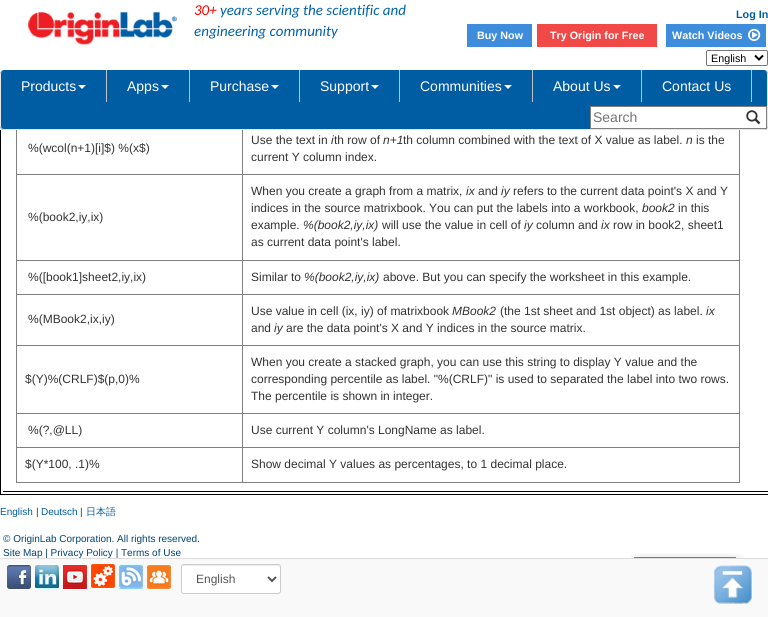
#include <cairo.h>
#include <math.h>
#include <stddef.h>


static void set_color(cairo_t *cr, unsigned color) {
    cairo_set_source_rgb(cr, (color >> 16) / 255.0, (color >> 8 & 255) / 255.0, (color & 255) / 255.0);
}

static void draw_text(cairo_t *cr, double x, double y, const char *s, const char *family, double size, int italic, int bold, unsigned color) {
    cairo_select_font_face(cr, family, italic ? CAIRO_FONT_SLANT_ITALIC : CAIRO_FONT_SLANT_NORMAL,
        bold ? CAIRO_FONT_WEIGHT_BOLD : CAIRO_FONT_WEIGHT_NORMAL);
    cairo_set_font_size(cr, size);
    set_color(cr, color);
    cairo_move_to(cr, x, y);
    cairo_show_text(cr, s);
}

static void fill_rect(cairo_t *cr, double x, double y, double w, double h, unsigned color) {
    set_color(cr, color);
    cairo_rectangle(cr, x, y, w, h);
    cairo_fill(cr);
}

static void rounded_rect(cairo_t *cr, double x, double y, double w, double h, double r) {
    cairo_new_sub_path(cr);
    cairo_arc(cr, x + w - r, y + h - r, r, 0, M_PI / 2);
    cairo_arc(cr, x + r, y + h - r, r, M_PI / 2, M_PI);
    cairo_arc(cr, x + r, y + r, r, M_PI, 1.5 * M_PI);
    cairo_arc(cr, x + w - r, y + r, r, 1.5 * M_PI, 2 * M_PI);
    cairo_close_path(cr);
}

static void draw_image(cairo_t *cr, const char *path, double x, double y, double w, double h) {
    cairo_surface_t *image = cairo_image_surface_create_from_png(path);
    cairo_save(cr);
    cairo_set_source_surface(cr, image, x, y);
    cairo_rectangle(cr, x, y, w, h);
    cairo_fill(cr);
    cairo_restore(cr);
    cairo_surface_destroy(image);
}

int main(void) {
    cairo_surface_t *surface = cairo_image_surface_create(CAIRO_FORMAT_RGB24, 768, 617);
    cairo_t *cr = cairo_create(surface);
    cairo_font_options_t *options = cairo_font_options_create();
    cairo_font_options_set_hint_metrics(options, CAIRO_HINT_METRICS_OFF);
    cairo_font_options_set_hint_style(options, CAIRO_HINT_STYLE_NONE);
    cairo_set_font_options(cr, options);
    cairo_set_miter_limit(cr, 4);
    set_color(cr, 0xFFFFFF);
    cairo_paint(cr);
    cairo_rectangle(cr, 0.5, -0.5, 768, 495);
    set_color(cr, 0x000000);
    cairo_set_line_width(cr, 1);
    cairo_stroke(cr);
    fill_rect(cr, 739, 130, 1, 353, 0x808080);
    fill_rect(cr, 16, 482, 724, 1, 0x808080);
    fill_rect(cr, 16, 130, 1, 353, 0x808080);
    fill_rect(cr, 242, 174, 498, 1, 0x808080);
    fill_rect(cr, 242, 260, 498, 1, 0x808080);
    fill_rect(cr, 242, 294, 498, 1, 0x808080);
    fill_rect(cr, 242, 345, 498, 1, 0x808080);
    fill_rect(cr, 242, 413, 498, 1, 0x808080);
    fill_rect(cr, 242, 447, 498, 1, 0x808080);
    fill_rect(cr, 242, 447, 1, 36, 0x808080);
    fill_rect(cr, 16, 447, 227, 1, 0x808080);
    fill_rect(cr, 242, 413, 1, 35, 0x808080);
    fill_rect(cr, 16, 413, 227, 1, 0x808080);
    fill_rect(cr, 242, 345, 1, 69, 0x808080);
    fill_rect(cr, 16, 345, 227, 1, 0x808080);
    fill_rect(cr, 242, 294, 1, 52, 0x808080);
    fill_rect(cr, 16, 294, 227, 1, 0x808080);
    fill_rect(cr, 242, 260, 1, 35, 0x808080);
    fill_rect(cr, 16, 260, 227, 1, 0x808080);
    fill_rect(cr, 242, 174, 1, 87, 0x808080);
    fill_rect(cr, 16, 174, 227, 1, 0x808080);
    fill_rect(cr, 242, 123, 1, 52, 0x808080);
    fill_rect(cr, 0, 0, 243, 130, 0xFFFFFF);
    draw_image(cr, "assets/img1.png", 28, 12, 149, 33);
    draw_text(cr, 194, 15, "30+", "Carlito", 15, 1, 0, 0xFF0000);
    draw_text(cr, 220, 15, "years serving the scientific and", "Carlito", 15, 1, 0, 0x0061AD);
    draw_text(cr, 194, 36, "engineering community", "Carlito", 15, 1, 0, 0x0061AD);
    draw_text(cr, 736, 18, "Log In", "Liberation Sans", 10.75, 0, 1, 0x005DA4);
    fill_rect(cr, 467, 24, 65, 23, 0x3E8DDD);
    draw_text(cr, 477, 39, "Buy Now", "Liberation Sans", 10.75, 0, 1, 0xFFFFFF);
    fill_rect(cr, 537, 24, 120, 23, 0xF14947);
    draw_text(cr, 550, 39, "Try Origin for Free", "Liberation Sans", 10.75, 0, 1, 0xFFFFFF);
    fill_rect(cr, 666, 24, 100, 23, 0x3E8DDD);
    draw_text(cr, 672, 39, "Watch Videos", "Liberation Sans", 10.75, 0, 1, 0xFFFFFF);
    draw_image(cr, "assets/img2.png", 748, 28, 13, 13);
    rounded_rect(cr, 706.5, 50.5, 61, 15, 1.5);
    set_color(cr, 0x767676);
    cairo_stroke(cr);
    cairo_new_path(cr);
    cairo_move_to(cr, 755, 55.5);
    cairo_line_to(cr, 759, 59.5);
    cairo_line_to(cr, 763, 55.5);
    set_color(cr, 0x000000);
    cairo_set_line_width(cr, 2);
    cairo_stroke(cr);
    draw_text(cr, 711, 62, "English", "Liberation Sans", 10.75, 0, 0, 0x000000);
    set_color(cr, 0x005DA4);
    rounded_rect(cr, 0, 70, 768, 60, 4);
    cairo_fill(cr);
    set_color(cr, 0xE7E7E7);
    cairo_set_fill_rule(cr, CAIRO_FILL_RULE_EVEN_ODD);
    cairo_new_path(cr);
    cairo_move_to(cr, 4, 70);
    cairo_line_to(cr, 764, 70);
    cairo_curve_to(cr, 766, 70, 768, 72, 768, 74);
    cairo_line_to(cr, 768, 126);
    cairo_curve_to(cr, 768, 128, 766, 130, 764, 130);
    cairo_line_to(cr, 4, 130);
    cairo_curve_to(cr, 2, 130, 0, 128, 0, 126);
    cairo_line_to(cr, 0, 74);
    cairo_curve_to(cr, 0, 72, 2, 70, 4, 70);
    cairo_close_path(cr);
    cairo_move_to(cr, 4, 70);
    cairo_line_to(cr, 764, 70);
    cairo_curve_to(cr, 766, 70, 767, 72, 767, 74);
    cairo_line_to(cr, 767, 126);
    cairo_curve_to(cr, 767, 128, 766, 129, 764, 129);
    cairo_line_to(cr, 4, 129);
    cairo_curve_to(cr, 2, 129, 1, 128, 1, 126);
    cairo_line_to(cr, 1, 74);
    cairo_curve_to(cr, 1, 72, 2, 70, 4, 70);
    cairo_close_path(cr);
    cairo_fill(cr);
    fill_rect(cr, 106, 70, 1, 32, 0xBFBFBF);
    draw_text(cr, 21, 91, "Products", "Liberation Sans", 14, 0, 0, 0xFFFFFF);
    cairo_set_fill_rule(cr, CAIRO_FILL_RULE_WINDING);
    cairo_new_path(cr);
    cairo_move_to(cr, 78, 85);
    cairo_line_to(cr, 86, 85);
    cairo_line_to(cr, 82, 89);
    cairo_close_path(cr);
    cairo_fill(cr);
    fill_rect(cr, 189, 70, 1, 32, 0xBFBFBF);
    draw_text(cr, 127, 91, "Apps", "Liberation Sans", 14, 0, 0, 0xFFFFFF);
    cairo_new_path(cr);
    cairo_move_to(cr, 161, 85);
    cairo_line_to(cr, 169, 85);
    cairo_line_to(cr, 165, 89);
    cairo_close_path(cr);
    cairo_fill(cr);
    fill_rect(cr, 299, 70, 1, 32, 0xBFBFBF);
    draw_text(cr, 210, 91, "Purchase", "Liberation Sans", 14, 0, 0, 0xFFFFFF);
    cairo_new_path(cr);
    cairo_move_to(cr, 271, 85);
    cairo_line_to(cr, 279, 85);
    cairo_line_to(cr, 275, 89);
    cairo_close_path(cr);
    cairo_fill(cr);
    fill_rect(cr, 399, 70, 1, 32, 0xBFBFBF);
    draw_text(cr, 320, 91, "Support", "Liberation Sans", 14, 0, 0, 0xFFFFFF);
    cairo_new_path(cr);
    cairo_move_to(cr, 371, 85);
    cairo_line_to(cr, 379, 85);
    cairo_line_to(cr, 375, 89);
    cairo_close_path(cr);
    cairo_fill(cr);
    fill_rect(cr, 532, 70, 1, 32, 0xBFBFBF);
    draw_text(cr, 420, 91, "Communities", "Liberation Sans", 14, 0, 0, 0xFFFFFF);
    cairo_new_path(cr);
    cairo_move_to(cr, 504, 85);
    cairo_line_to(cr, 512, 85);
    cairo_line_to(cr, 508, 89);
    cairo_close_path(cr);
    cairo_fill(cr);
    fill_rect(cr, 641, 70, 1, 32, 0xBFBFBF);
    draw_text(cr, 553, 91, "About Us", "Liberation Sans", 14, 0, 0, 0xFFFFFF);
    cairo_new_path(cr);
    cairo_move_to(cr, 613, 85);
    cairo_line_to(cr, 621, 85);
    cairo_line_to(cr, 617, 89);
    cairo_close_path(cr);
    cairo_fill(cr);
    fill_rect(cr, 751, 70, 1, 32, 0xBFBFBF);
    draw_text(cr, 662, 91, "Contact Us", "Liberation Sans", 14, 0, 0, 0xFFFFFF);
    fill_rect(cr, 591, 107, 175, 21, 0xFFFFFF);
    fill_rect(cr, 590, 106, 177, 1, 0x808080);
    fill_rect(cr, 590, 128, 150, 1, 0x808080);
    fill_rect(cr, 590, 106, 1, 23, 0x808080);
    draw_text(cr, 593, 122, "Search", "Liberation Sans", 14, 0, 0, 0x757575);
    fill_rect(cr, 766, 106, 1, 23, 0x808080);
    fill_rect(cr, 740, 128, 27, 1, 0x808080);
    draw_image(cr, "assets/img3.png", 746, 110, 15, 15);
    fill_rect(cr, 0, 559, 768, 58, 0xF9F9F9);
    draw_image(cr, "assets/img4.png", 713, 565, 39, 39);
    fill_rect(cr, 3, 491, 765, 1, 0x000000);
    draw_text(cr, 28, 152, "%(wcol(n+1)[i]$) %(x$)", "Liberation Sans", 12, 0, 0, 0x333333);
    draw_text(cr, 251, 144, "Use the text in", "Liberation Sans", 12, 0, 0, 0x333333);
    draw_text(cr, 331, 144, "i", "Liberation Sans", 12, 1, 0, 0x333333);
    draw_text(cr, 334, 144, "th row of", "Liberation Sans", 12, 0, 0, 0x333333);
    draw_text(cr, 383, 144, "n+1", "Liberation Sans", 12, 1, 0, 0x333333);
    draw_text(cr, 403, 144, "th column combined with the text of X value as label.", "Liberation Sans", 12, 0, 0, 0x333333);
    draw_text(cr, 686, 144, "n", "Liberation Sans", 12, 1, 0, 0x333333);
    draw_text(cr, 696, 144, "is the", "Liberation Sans", 12, 0, 0, 0x333333);
    draw_text(cr, 251, 161, "current Y column index.", "Liberation Sans", 12, 0, 0, 0x333333);
    draw_text(cr, 28, 221, "%(book2,iy,ix)", "Liberation Sans", 12, 0, 0, 0x333333);
    draw_text(cr, 251, 195, "When you create a graph from a matrix,", "Liberation Sans", 12, 0, 0, 0x333333);
    draw_text(cr, 466, 195, "ix", "Liberation Sans", 12, 1, 0, 0x333333);
    draw_text(cr, 478, 195, "and", "Liberation Sans", 12, 0, 0, 0x333333);
    draw_text(cr, 501, 195, "iy", "Liberation Sans", 12, 1, 0, 0x333333);
    draw_text(cr, 513, 195, "refers to the current data point's X and Y", "Liberation Sans", 12, 0, 0, 0x333333);
    draw_text(cr, 251, 212, "indices in the source matrixbook. You can put the labels into a workbook,", "Liberation Sans", 12, 0, 0, 0x333333);
    draw_text(cr, 642, 212, "book2", "Liberation Sans", 12, 1, 0, 0x333333);
    draw_text(cr, 678, 212, "in this", "Liberation Sans", 12, 0, 0, 0x333333);
    draw_text(cr, 251, 229, "example.", "Liberation Sans", 12, 0, 0, 0x333333);
    draw_text(cr, 303, 229, "%(book2,iy,ix)", "Liberation Sans", 12, 1, 0, 0x333333);
    draw_text(cr, 382, 229, "will use the value in cell of", "Liberation Sans", 12, 0, 0, 0x333333);
    draw_text(cr, 524, 229, "iy", "Liberation Sans", 12, 1, 0, 0x333333);
    draw_text(cr, 536, 229, "column and", "Liberation Sans", 12, 0, 0, 0x333333);
    draw_text(cr, 601, 229, "ix", "Liberation Sans", 12, 1, 0, 0x333333);
    draw_text(cr, 613, 229, "row in book2, sheet1", "Liberation Sans", 12, 0, 0, 0x333333);
    draw_text(cr, 251, 246, "as current data point's label.", "Liberation Sans", 12, 0, 0, 0x333333);
    draw_text(cr, 28, 281, "%([book1]sheet2,iy,ix)", "Liberation Sans", 12, 0, 0, 0x333333);
    draw_text(cr, 251, 281, "Similar to", "Liberation Sans", 12, 0, 0, 0x333333);
    draw_text(cr, 304, 281, "%(book2,iy,ix)", "Liberation Sans", 12, 1, 0, 0x333333);
    draw_text(cr, 383, 281, "above. But you can specify the worksheet in this example.", "Liberation Sans", 12, 0, 0, 0x333333);
    draw_text(cr, 28, 323, "%(MBook2,ix,iy)", "Liberation Sans", 12, 0, 0, 0x333333);
    draw_text(cr, 251, 315, "Use value in cell (ix, iy) of matrixbook", "Liberation Sans", 12, 0, 0, 0x333333);
    draw_text(cr, 452, 315, "MBook2", "Liberation Sans", 12, 1, 0, 0x333333);
    draw_text(cr, 500, 315, "(the 1st sheet and 1st object) as label.", "Liberation Sans", 12, 0, 0, 0x333333);
    draw_text(cr, 706, 315, "ix", "Liberation Sans", 12, 1, 0, 0x333333);
    draw_text(cr, 251, 332, "and", "Liberation Sans", 12, 0, 0, 0x333333);
    draw_text(cr, 274, 332, "iy", "Liberation Sans", 12, 1, 0, 0x333333);
    draw_text(cr, 286, 332, "are the data point's X and Y indices in the source matrix.", "Liberation Sans", 12, 0, 0, 0x333333);
    draw_text(cr, 25, 383, "$(Y)%(CRLF)$(p,0)%", "Liberation Sans", 12, 0, 0, 0x333333);
    draw_text(cr, 251, 366, "When you create a stacked graph, you can use this string to display Y value and the", "Liberation Sans", 12, 0, 0, 0x333333);
    draw_text(cr, 251, 383, "corresponding percentile as label. \"%(CRLF)\" is used to separated the label into two rows.", "Liberation Sans", 12, 0, 0, 0x333333);
    draw_text(cr, 251, 400, "The percentile is shown in integer.", "Liberation Sans", 12, 0, 0, 0x333333);
    draw_text(cr, 28, 434, "%(?,@LL)", "Liberation Sans", 12, 0, 0, 0x333333);
    draw_text(cr, 251, 434, "Use current Y column's LongName as label.", "Liberation Sans", 12, 0, 0, 0x333333);
    draw_text(cr, 25, 468, "$(Y*100, .1)%", "Liberation Sans", 12, 0, 0, 0x333333);
    draw_text(cr, 251, 468, "Show decimal Y values as percentages, to 1 decimal place.", "Liberation Sans", 12, 0, 0, 0x333333);
    draw_text(cr, 0, 515, "English", "Liberation Sans", 10, 0, 0, 0x005DA4);
    draw_text(cr, 36, 515, "|", "Liberation Sans", 10, 0, 0, 0x333333);
    draw_text(cr, 41, 515, "Deutsch", "Liberation Sans", 10, 0, 0, 0x005DA4);
    draw_text(cr, 80, 515, "|", "Liberation Sans", 10, 0, 0, 0x333333);
    draw_text(cr, 86, 515, "日本語", "WenQuanYi Zen Hei Medium", 10, 0, 0, 0x005DA4);
    draw_text(cr, 3, 542, "© OriginLab Corporation. All rights reserved.", "Liberation Sans", 10, 0, 0, 0x004376);
    draw_text(cr, 3, 556, "Site Map | Privacy Policy | Terms of Use", "Liberation Sans", 10, 0, 0, 0x004376);
    draw_image(cr, "assets/img5.png", 630, 553, 114, 5);
    fill_rect(cr, 0, 558, 768, 1, 0xDDDDDD);
    draw_image(cr, "assets/img6.png", 7, 564, 25, 26);
    draw_image(cr, "assets/img7.png", 35, 564, 25, 26);
    draw_image(cr, "assets/img8.png", 63, 564, 25, 26);
    draw_image(cr, "assets/img9.png", 91, 564, 25, 26);
    draw_image(cr, "assets/img10.png", 119, 564, 25, 26);
    draw_image(cr, "assets/img11.png", 147, 564, 25, 26);
    set_color(cr, 0xFFFFFF);
    rounded_rect(cr, 181, 564, 100, 30, 3);
    cairo_fill(cr);
    set_color(cr, 0xECECEC);
    cairo_new_path(cr);
    cairo_move_to(cr, 184, 566);
    cairo_line_to(cr, 278, 566);
    cairo_curve_to(cr, 279, 566, 280, 567, 280, 568);
    cairo_curve_to(cr, 280, 567, 280, 565, 278, 565);
    cairo_line_to(cr, 200, 565);
    cairo_curve_to(cr, 198, 565, 182, 561, 182, 568);
    cairo_curve_to(cr, 182, 567, 183, 566, 184, 566);
    cairo_close_path(cr);
    cairo_fill(cr);
    rounded_rect(cr, 181.5, 564.5, 99, 29, 2.5);
    set_color(cr, 0xCCCCCC);
    cairo_set_line_width(cr, 1);
    cairo_stroke(cr);
    cairo_new_path(cr);
    cairo_move_to(cr, 268, 577);
    cairo_line_to(cr, 272, 581);
    cairo_line_to(cr, 276, 577);
    set_color(cr, 0x555555);
    cairo_set_line_width(cr, 2);
    cairo_stroke(cr);
    draw_text(cr, 196, 583, "English", "Liberation Sans", 12, 0, 0, 0x555555);
    cairo_surface_write_to_png(surface, "output.png");
    cairo_font_options_destroy(options);
    cairo_destroy(cr);
    cairo_surface_destroy(surface);
    return 0;
}
